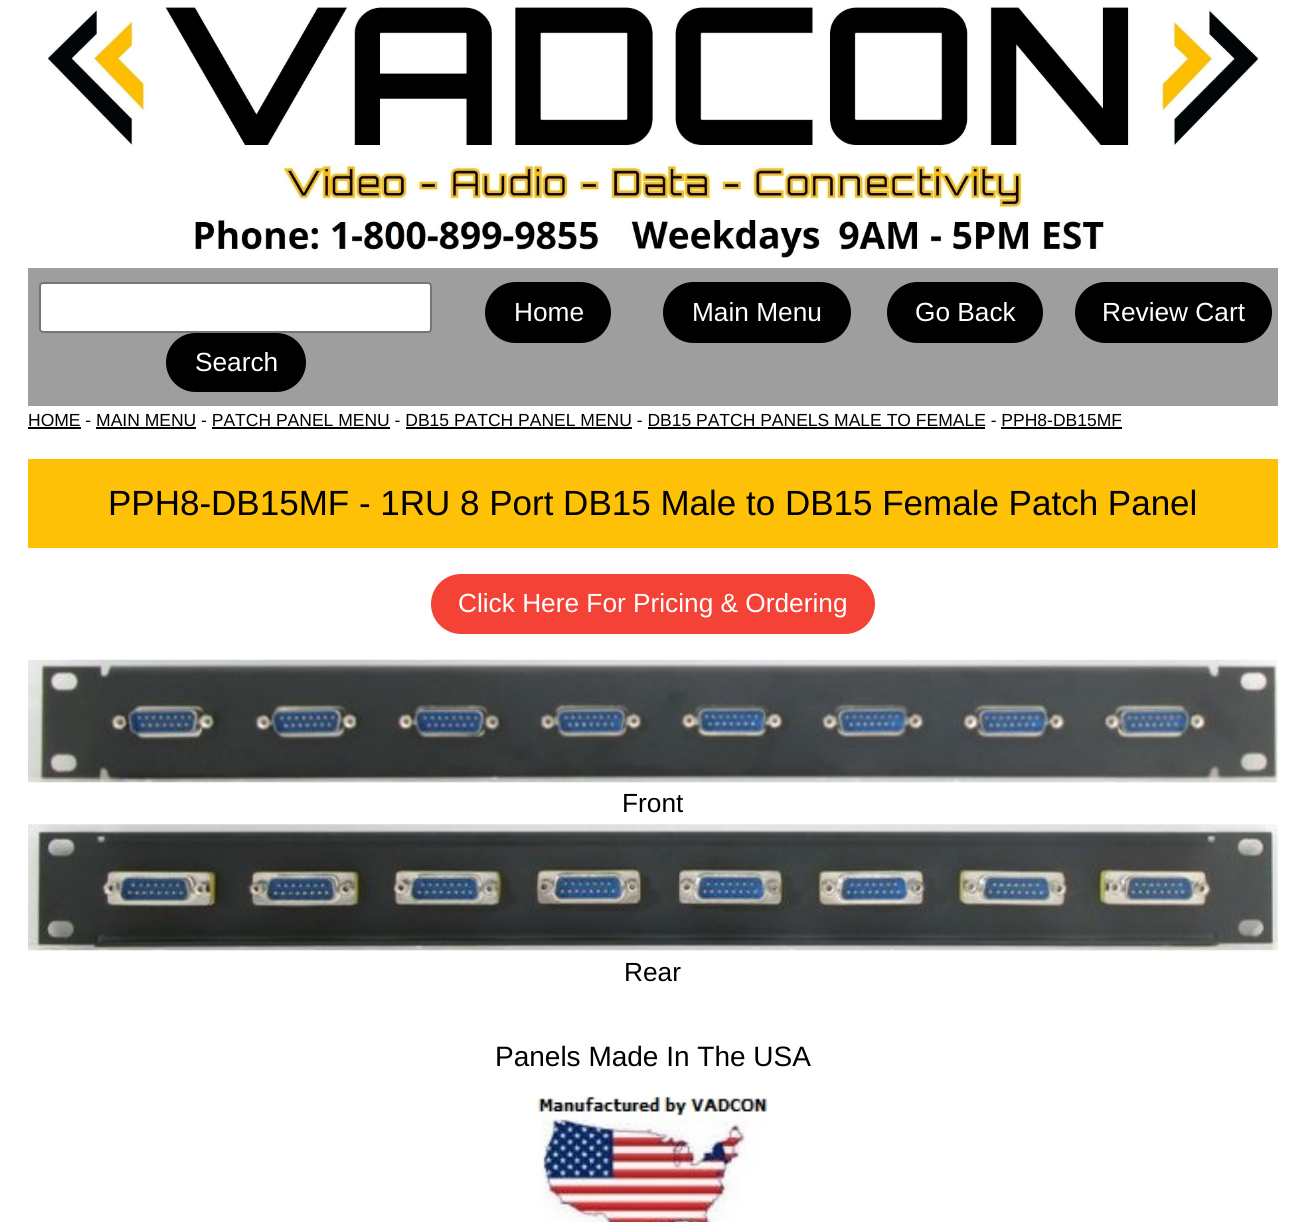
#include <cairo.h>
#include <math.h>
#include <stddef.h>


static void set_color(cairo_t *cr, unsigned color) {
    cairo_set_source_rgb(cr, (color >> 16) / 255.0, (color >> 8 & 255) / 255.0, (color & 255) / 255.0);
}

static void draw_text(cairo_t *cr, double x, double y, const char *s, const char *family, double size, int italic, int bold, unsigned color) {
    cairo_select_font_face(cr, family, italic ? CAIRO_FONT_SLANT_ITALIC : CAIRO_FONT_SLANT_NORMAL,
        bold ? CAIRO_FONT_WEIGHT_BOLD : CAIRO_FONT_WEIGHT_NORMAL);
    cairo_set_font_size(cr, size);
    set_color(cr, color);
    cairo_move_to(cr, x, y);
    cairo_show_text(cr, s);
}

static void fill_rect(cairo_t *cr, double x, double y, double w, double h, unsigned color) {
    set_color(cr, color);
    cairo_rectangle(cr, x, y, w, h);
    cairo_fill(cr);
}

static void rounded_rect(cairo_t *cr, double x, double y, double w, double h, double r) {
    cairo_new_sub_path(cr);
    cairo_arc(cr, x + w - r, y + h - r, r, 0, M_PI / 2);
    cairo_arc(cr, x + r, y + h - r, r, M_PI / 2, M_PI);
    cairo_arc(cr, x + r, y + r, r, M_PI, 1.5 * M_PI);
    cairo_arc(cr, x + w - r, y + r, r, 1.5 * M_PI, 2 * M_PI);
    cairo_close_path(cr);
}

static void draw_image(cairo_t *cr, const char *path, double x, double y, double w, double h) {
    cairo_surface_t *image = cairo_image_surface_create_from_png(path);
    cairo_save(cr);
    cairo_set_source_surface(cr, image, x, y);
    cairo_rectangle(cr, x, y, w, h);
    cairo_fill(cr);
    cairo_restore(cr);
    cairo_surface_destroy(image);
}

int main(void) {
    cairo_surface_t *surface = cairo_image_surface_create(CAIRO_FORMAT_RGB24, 1305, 1222);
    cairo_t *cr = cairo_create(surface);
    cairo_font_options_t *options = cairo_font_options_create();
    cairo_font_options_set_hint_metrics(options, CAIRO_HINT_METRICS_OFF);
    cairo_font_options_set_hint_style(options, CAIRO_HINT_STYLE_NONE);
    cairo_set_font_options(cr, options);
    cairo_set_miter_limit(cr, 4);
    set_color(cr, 0xFFFFFF);
    cairo_paint(cr);
    draw_image(cr, "assets/img1.png", 47, 7, 1212, 251);
    fill_rect(cr, 28, 268, 1250, 138, 0x9E9E9E);
    set_color(cr, 0x000000);
    rounded_rect(cr, 485, 282, 126, 61, 30.5);
    cairo_fill(cr);
    draw_text(cr, 514, 321, "Home", "Liberation Sans", 26.25, 0, 0, 0xFFFFFF);
    set_color(cr, 0x000000);
    rounded_rect(cr, 663, 282, 188, 61, 30.5);
    cairo_fill(cr);
    draw_text(cr, 692, 321, "Main Menu", "Liberation Sans", 26.25, 0, 0, 0xFFFFFF);
    set_color(cr, 0x000000);
    rounded_rect(cr, 887, 282, 156, 61, 30.5);
    cairo_fill(cr);
    draw_text(cr, 915, 321, "Go Back", "Liberation Sans", 26.25, 0, 0, 0xFFFFFF);
    set_color(cr, 0x000000);
    rounded_rect(cr, 1075, 282, 197, 61, 30.5);
    cairo_fill(cr);
    draw_text(cr, 1102, 321, "Review Cart", "Liberation Sans", 26.25, 0, 0, 0xFFFFFF);
    rounded_rect(cr, 40, 283, 391, 49, 3);
    cairo_fill_preserve(cr);
    set_color(cr, 0x767676);
    cairo_stroke(cr);
    set_color(cr, 0x000000);
    rounded_rect(cr, 166, 333, 140, 59, 29.5);
    cairo_fill(cr);
    draw_text(cr, 195, 371, "Search", "Liberation Sans", 26.25, 0, 0, 0xFFFFFF);
    draw_text(cr, 28, 426, "HOME - MAIN MENU - PATCH PANEL MENU - DB15 PATCH PANEL MENU - DB15 PATCH PANELS MALE TO FEMALE - PPH8-DB15MF", "Liberation Sans", 17.5, 0, 0, 0x000000);
    fill_rect(cr, 28, 427, 53, 2, 0x000000);
    fill_rect(cr, 96, 427, 100, 2, 0x000000);
    fill_rect(cr, 212, 427, 178, 2, 0x000000);
    fill_rect(cr, 406, 427, 226, 2, 0x000000);
    fill_rect(cr, 648, 427, 337, 2, 0x000000);
    fill_rect(cr, 1001, 427, 121, 2, 0x000000);
    fill_rect(cr, 28, 459, 1250, 89, 0xFFC107);
    draw_text(cr, 108, 515, "PPH8-DB15MF - 1RU 8 Port DB15 Male to DB15 Female Patch Panel", "Liberation Sans", 35, 0, 0, 0x000000);
    set_color(cr, 0xF44336);
    rounded_rect(cr, 431, 574, 444, 60, 30);
    cairo_fill(cr);
    draw_text(cr, 458, 612, "Click Here For Pricing & Ordering", "Liberation Sans", 26.25, 0, 0, 0xFFFFFF);
    draw_image(cr, "assets/img2.png", 28, 659, 1250, 124);
    draw_text(cr, 622, 812, "Front", "Liberation Sans", 26.25, 0, 0, 0x000000);
    draw_image(cr, "assets/img3.png", 28, 824, 1250, 127);
    draw_text(cr, 624, 981, "Rear", "Liberation Sans", 26.25, 0, 0, 0x000000);
    draw_text(cr, 495, 1066, "Panels Made In The USA", "Liberation Sans", 28, 0, 0, 0x000000);
    draw_image(cr, "assets/img4.png", 537, 1095, 232, 127);
    cairo_surface_write_to_png(surface, "output.png");
    cairo_font_options_destroy(options);
    cairo_destroy(cr);
    cairo_surface_destroy(surface);
    return 0;
}
